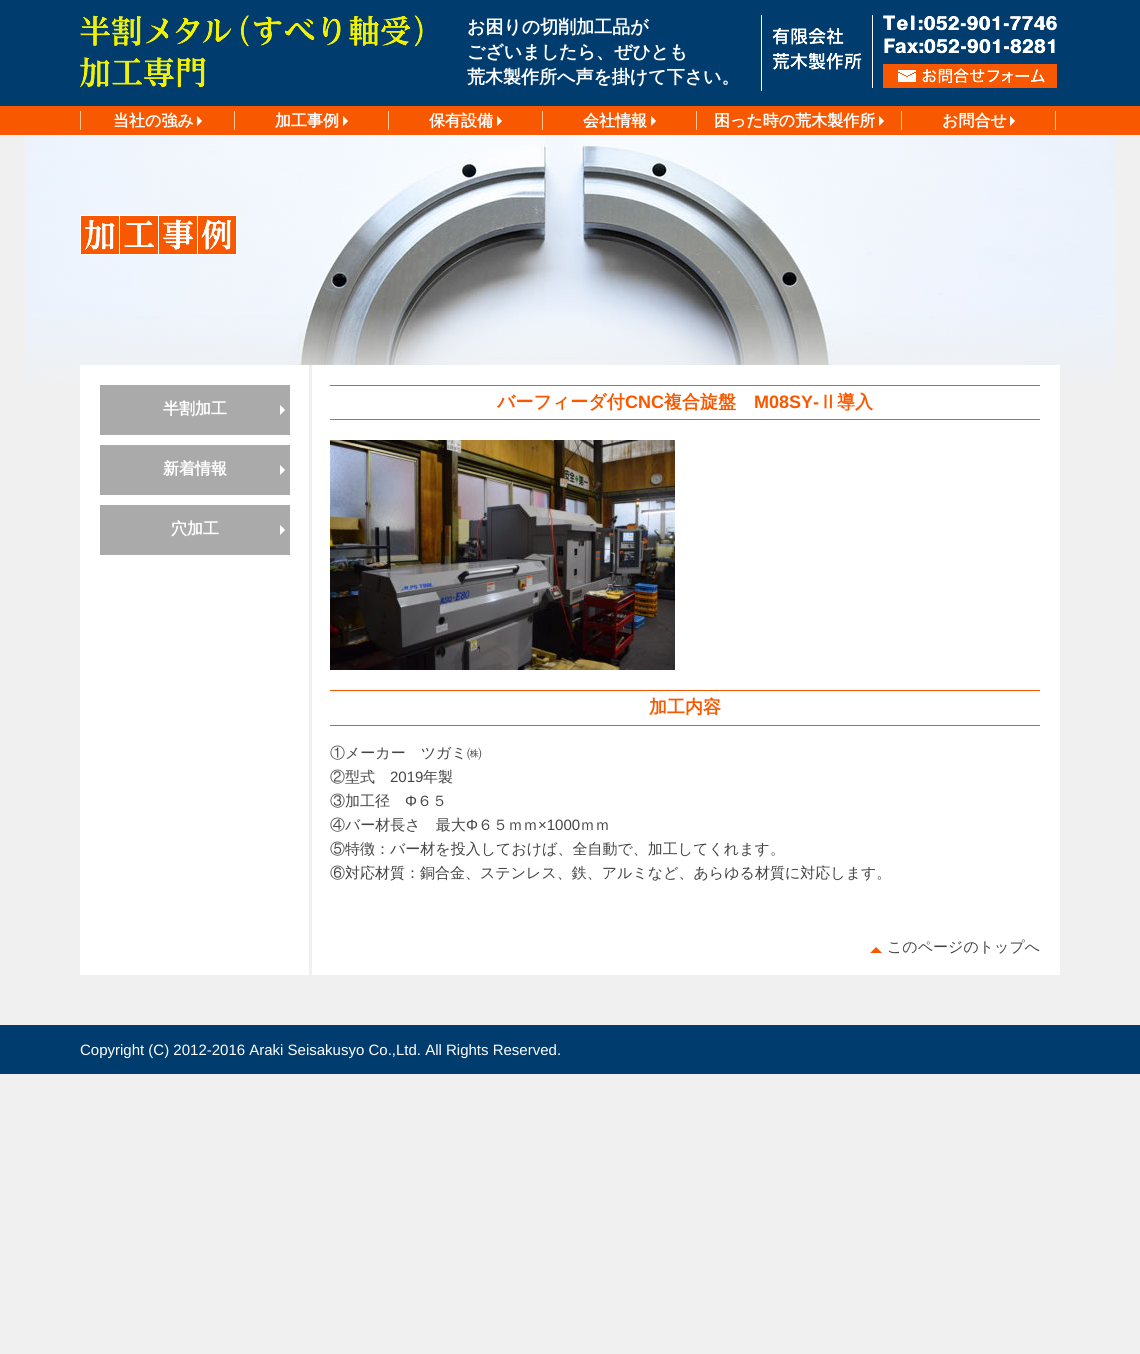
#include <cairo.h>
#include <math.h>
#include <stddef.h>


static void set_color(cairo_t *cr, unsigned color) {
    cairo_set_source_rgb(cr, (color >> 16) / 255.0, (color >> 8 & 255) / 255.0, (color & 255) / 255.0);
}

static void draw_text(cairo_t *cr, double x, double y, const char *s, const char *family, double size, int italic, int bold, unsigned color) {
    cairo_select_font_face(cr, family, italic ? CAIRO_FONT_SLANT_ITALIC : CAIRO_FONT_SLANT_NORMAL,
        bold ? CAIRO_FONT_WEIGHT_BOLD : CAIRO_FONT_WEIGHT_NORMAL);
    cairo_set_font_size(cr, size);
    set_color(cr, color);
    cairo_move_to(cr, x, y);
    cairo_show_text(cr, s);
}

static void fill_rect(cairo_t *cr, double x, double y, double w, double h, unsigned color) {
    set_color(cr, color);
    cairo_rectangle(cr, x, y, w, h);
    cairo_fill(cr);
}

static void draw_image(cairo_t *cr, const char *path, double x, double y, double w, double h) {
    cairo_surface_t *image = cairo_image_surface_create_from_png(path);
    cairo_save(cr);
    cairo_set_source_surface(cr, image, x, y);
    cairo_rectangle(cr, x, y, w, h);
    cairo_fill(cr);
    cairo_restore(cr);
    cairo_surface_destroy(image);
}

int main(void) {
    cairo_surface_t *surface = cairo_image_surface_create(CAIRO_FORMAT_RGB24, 1140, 1354);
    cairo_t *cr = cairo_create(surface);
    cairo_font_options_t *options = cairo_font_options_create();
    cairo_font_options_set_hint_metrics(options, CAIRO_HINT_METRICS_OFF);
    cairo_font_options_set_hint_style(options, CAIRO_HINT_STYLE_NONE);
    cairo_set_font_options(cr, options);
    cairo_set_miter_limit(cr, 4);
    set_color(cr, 0xF0F0F0);
    cairo_paint(cr);
    fill_rect(cr, 0, 0, 1140, 106, 0x003C6E);
    draw_image(cr, "assets/img1.png", 80, 15, 343, 73);
    fill_rect(cr, 761, 15, 1, 76, 0xFFFFFF);
    draw_text(cr, 467, 33, "お困りの切削加工品が", "WenQuanYi Zen Hei", 18, 0, 1, 0xFFFFFF);
    draw_text(cr, 467, 58, "ございましたら、ぜひとも", "WenQuanYi Zen Hei", 18, 0, 1, 0xFFFFFF);
    draw_text(cr, 467, 83, "荒木製作所へ声を掛けて下さい。", "WenQuanYi Zen Hei", 18, 0, 1, 0xFFFFFF);
    draw_image(cr, "assets/img2.png", 772, 27, 90, 43);
    fill_rect(cr, 872, 15, 1, 73, 0xFFFFFF);
    draw_image(cr, "assets/img3.png", 883, 15, 174, 39);
    draw_image(cr, "assets/img4.png", 883, 64, 174, 24);
    fill_rect(cr, 0, 106, 1140, 29, 0xF85800);
    fill_rect(cr, 80, 111, 1, 19, 0xFFCC99);
    draw_text(cr, 113, 126, "当社の強み", "WenQuanYi Zen Hei", 16, 0, 1, 0xFFFFFF);
    draw_image(cr, "assets/img5.png", 197, 116, 5, 10);
    fill_rect(cr, 234, 111, 1, 19, 0xFFCC99);
    draw_text(cr, 275, 126, "加工事例", "WenQuanYi Zen Hei", 16, 0, 1, 0xFFFFFF);
    draw_image(cr, "assets/img5.png", 343, 116, 5, 10);
    fill_rect(cr, 388, 111, 1, 19, 0xFFCC99);
    draw_text(cr, 429, 126, "保有設備", "WenQuanYi Zen Hei", 16, 0, 1, 0xFFFFFF);
    draw_image(cr, "assets/img5.png", 497, 116, 5, 10);
    fill_rect(cr, 542, 111, 1, 19, 0xFFCC99);
    draw_text(cr, 583, 126, "会社情報", "WenQuanYi Zen Hei", 16, 0, 1, 0xFFFFFF);
    draw_image(cr, "assets/img5.png", 651, 116, 5, 10);
    fill_rect(cr, 696, 111, 1, 19, 0xFFCC99);
    draw_text(cr, 714, 126, "困った時の荒木製作所", "WenQuanYi Zen Hei", 16, 0, 1, 0xFFFFFF);
    draw_image(cr, "assets/img5.png", 879, 116, 5, 10);
    fill_rect(cr, 1055, 111, 1, 19, 0xFFCC99);
    fill_rect(cr, 901, 111, 1, 19, 0xFFCC99);
    draw_text(cr, 942, 126, "お問合せ", "WenQuanYi Zen Hei", 16, 0, 1, 0xFFFFFF);
    draw_image(cr, "assets/img5.png", 1010, 116, 5, 10);
    draw_image(cr, "assets/img6.png", 25, 135, 1090, 256);
    draw_image(cr, "assets/img7.png", 80, 215, 157, 40);
    fill_rect(cr, 80, 365, 980, 610, 0xFFFFFF);
    fill_rect(cr, 309, 365, 3, 610, 0xF0F0F0);
    fill_rect(cr, 100, 385, 190, 50, 0xAAAAAA);
    draw_image(cr, "assets/img8.png", 280, 405, 5, 10);
    draw_text(cr, 163, 414, "半割加工", "WenQuanYi Zen Hei", 16, 0, 1, 0xFFFFFF);
    fill_rect(cr, 100, 445, 190, 50, 0xAAAAAA);
    draw_image(cr, "assets/img8.png", 280, 465, 5, 10);
    draw_text(cr, 163, 474, "新着情報", "WenQuanYi Zen Hei", 16, 0, 1, 0xFFFFFF);
    fill_rect(cr, 100, 505, 190, 50, 0xAAAAAA);
    draw_image(cr, "assets/img8.png", 280, 525, 5, 10);
    draw_text(cr, 171, 534, "穴加工", "WenQuanYi Zen Hei", 16, 0, 1, 0xFFFFFF);
    fill_rect(cr, 330, 385, 710, 1, 0xF85800);
    fill_rect(cr, 330, 419, 710, 1, 0xF85800);
    draw_text(cr, 497, 408, "バーフィーダ付", "WenQuanYi Zen Hei", 18, 0, 1, 0xF85800);
    draw_text(cr, 625, 408, "CNC", "Liberation Sans", 18, 0, 1, 0xF85800);
    draw_text(cr, 664, 408, "複合旋盤", "WenQuanYi Zen Hei", 18, 0, 1, 0xF85800);
    draw_text(cr, 754, 408, "M08SY-", "Liberation Sans", 18, 0, 1, 0xF85800);
    draw_text(cr, 819, 408, "Ⅱ導入", "WenQuanYi Zen Hei", 18, 0, 1, 0xF85800);
    draw_image(cr, "assets/img9.png", 330, 440, 345, 230);
    fill_rect(cr, 330, 690, 710, 1, 0xF85800);
    fill_rect(cr, 330, 725, 710, 1, 0xF85800);
    draw_text(cr, 649, 713, "加工内容", "WenQuanYi Zen Hei", 18, 0, 1, 0xF85800);
    draw_text(cr, 330, 758, "①メーカー　ツガミ㈱", "WenQuanYi Zen Hei Medium", 15, 0, 0, 0x444444);
    draw_text(cr, 330, 782, "②型式", "WenQuanYi Zen Hei Medium", 15, 0, 0, 0x444444);
    draw_text(cr, 390, 782, "2019", "Liberation Sans", 15, 0, 0, 0x444444);
    draw_text(cr, 423, 782, "年製", "WenQuanYi Zen Hei Medium", 15, 0, 0, 0x444444);
    draw_text(cr, 330, 806, "③加工径", "WenQuanYi Zen Hei Medium", 15, 0, 0, 0x444444);
    draw_text(cr, 405, 806, "Φ", "Liberation Sans", 15, 0, 0, 0x444444);
    draw_text(cr, 417, 806, "６５", "WenQuanYi Zen Hei Medium", 15, 0, 0, 0x444444);
    draw_text(cr, 330, 830, "④バー材長さ　最大", "WenQuanYi Zen Hei Medium", 15, 0, 0, 0x444444);
    draw_text(cr, 466, 830, "Φ", "Liberation Sans", 15, 0, 0, 0x444444);
    draw_text(cr, 478, 830, "６５ｍｍ", "WenQuanYi Zen Hei Medium", 15, 0, 0, 0x444444);
    draw_text(cr, 538, 830, "×1000", "Liberation Sans", 15, 0, 0, 0x444444);
    draw_text(cr, 580, 830, "ｍｍ", "WenQuanYi Zen Hei Medium", 15, 0, 0, 0x444444);
    draw_text(cr, 330, 854, "⑤特徴：バー材を投入しておけば、全自動で、加工してくれます。", "WenQuanYi Zen Hei Medium", 15, 0, 0, 0x444444);
    draw_text(cr, 330, 878, "⑥対応材質：銅合金、ステンレス、鉄、アルミなど、あらゆる材質に対応します。", "WenQuanYi Zen Hei Medium", 15, 0, 0, 0x444444);
    draw_image(cr, "assets/img10.png", 870, 947, 12, 6);
    draw_text(cr, 887, 952, "このページのトップへ", "WenQuanYi Zen Hei Medium", 15, 0, 0, 0x444444);
    fill_rect(cr, 0, 1025, 1140, 49, 0x003C6E);
    draw_text(cr, 80, 1055, "Copyright (C) 2012-2016 Araki Seisakusyo Co.,Ltd. All Rights Reserved.", "Liberation Sans", 15, 0, 0, 0xFFFFFF);
    cairo_surface_write_to_png(surface, "output.png");
    cairo_font_options_destroy(options);
    cairo_destroy(cr);
    cairo_surface_destroy(surface);
    return 0;
}
